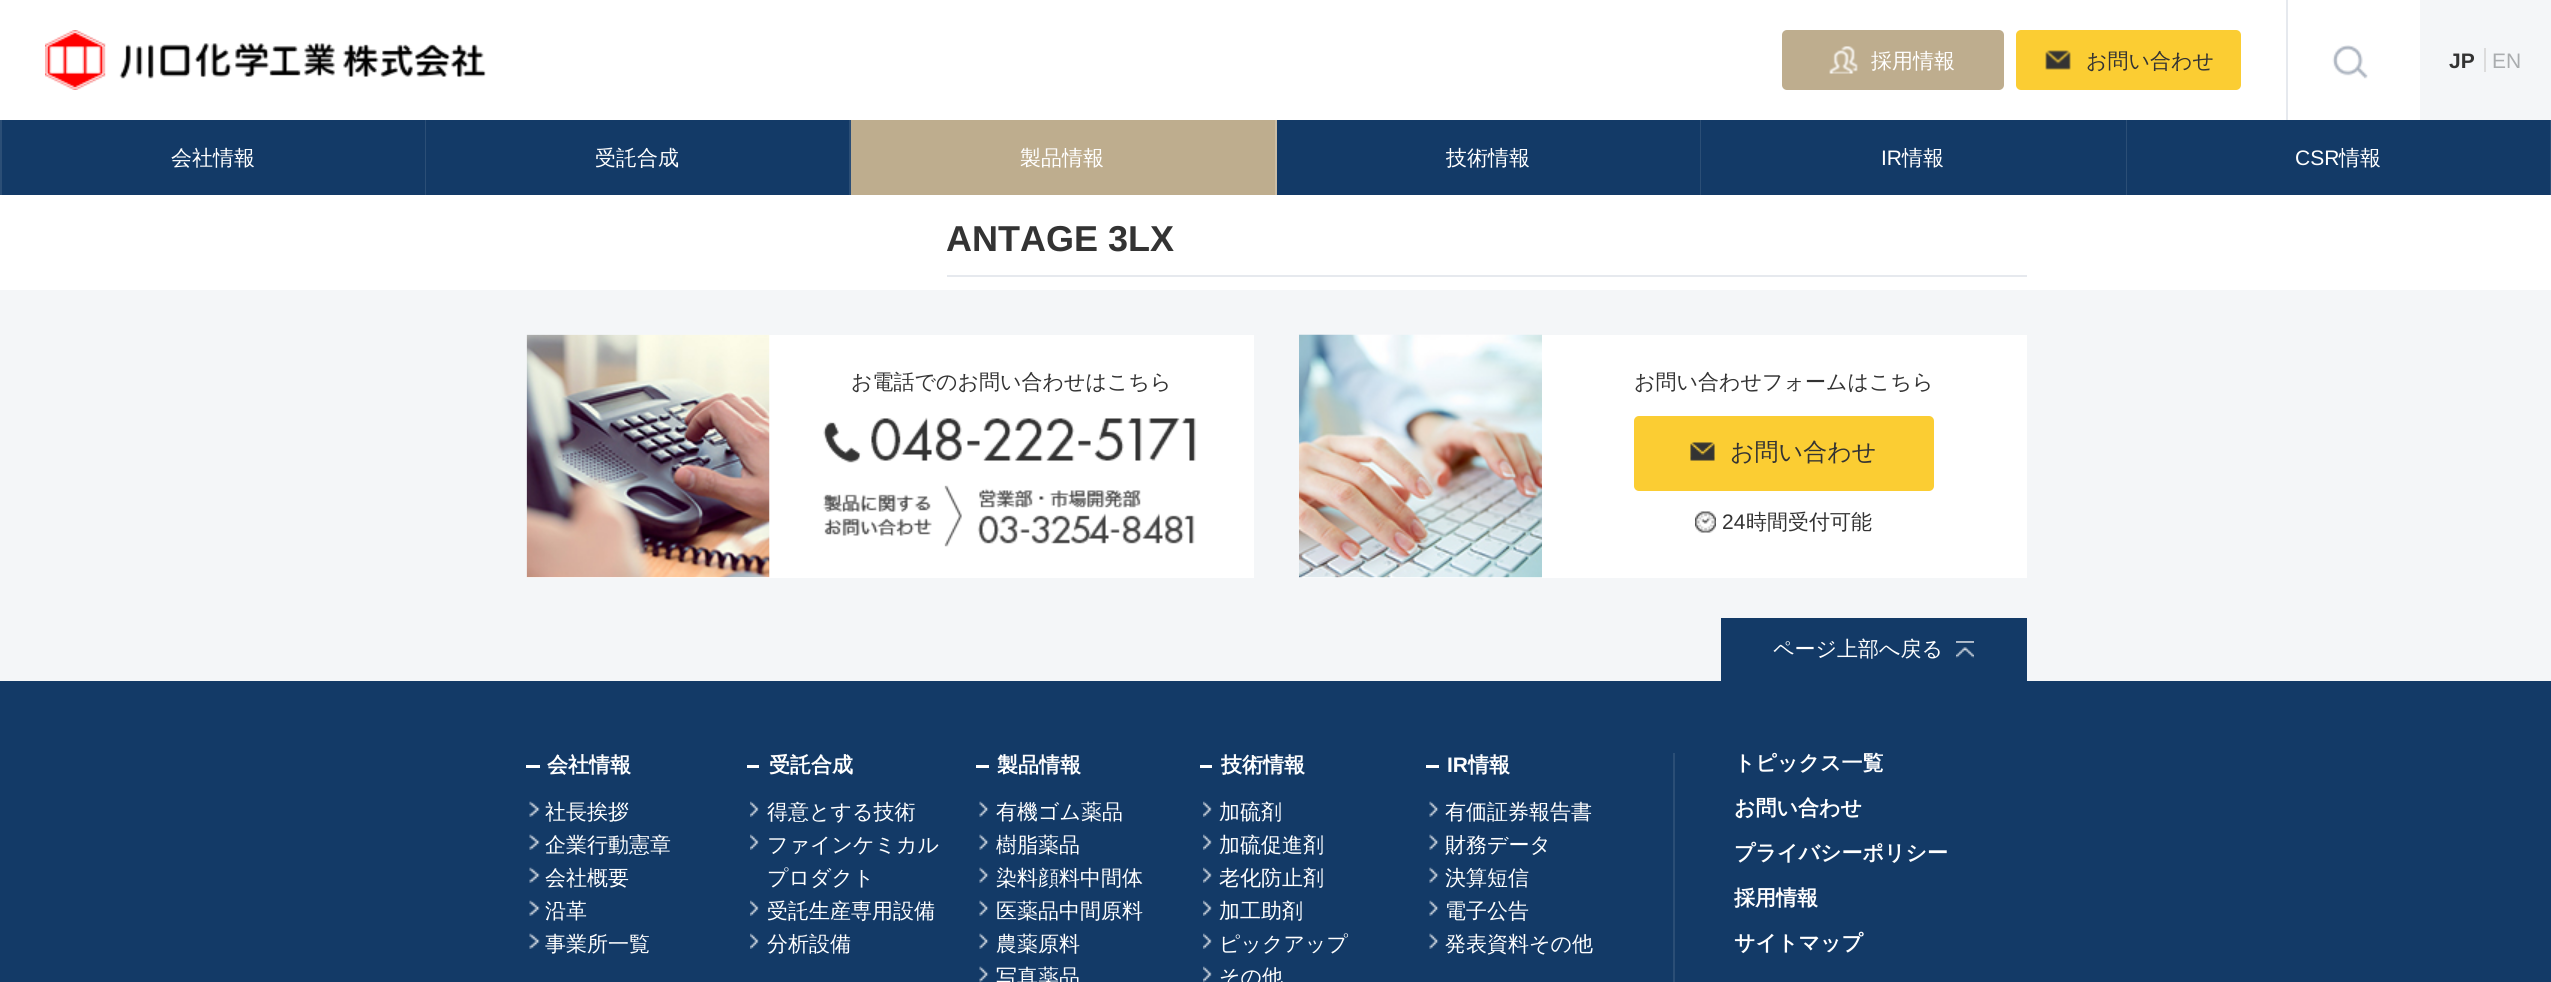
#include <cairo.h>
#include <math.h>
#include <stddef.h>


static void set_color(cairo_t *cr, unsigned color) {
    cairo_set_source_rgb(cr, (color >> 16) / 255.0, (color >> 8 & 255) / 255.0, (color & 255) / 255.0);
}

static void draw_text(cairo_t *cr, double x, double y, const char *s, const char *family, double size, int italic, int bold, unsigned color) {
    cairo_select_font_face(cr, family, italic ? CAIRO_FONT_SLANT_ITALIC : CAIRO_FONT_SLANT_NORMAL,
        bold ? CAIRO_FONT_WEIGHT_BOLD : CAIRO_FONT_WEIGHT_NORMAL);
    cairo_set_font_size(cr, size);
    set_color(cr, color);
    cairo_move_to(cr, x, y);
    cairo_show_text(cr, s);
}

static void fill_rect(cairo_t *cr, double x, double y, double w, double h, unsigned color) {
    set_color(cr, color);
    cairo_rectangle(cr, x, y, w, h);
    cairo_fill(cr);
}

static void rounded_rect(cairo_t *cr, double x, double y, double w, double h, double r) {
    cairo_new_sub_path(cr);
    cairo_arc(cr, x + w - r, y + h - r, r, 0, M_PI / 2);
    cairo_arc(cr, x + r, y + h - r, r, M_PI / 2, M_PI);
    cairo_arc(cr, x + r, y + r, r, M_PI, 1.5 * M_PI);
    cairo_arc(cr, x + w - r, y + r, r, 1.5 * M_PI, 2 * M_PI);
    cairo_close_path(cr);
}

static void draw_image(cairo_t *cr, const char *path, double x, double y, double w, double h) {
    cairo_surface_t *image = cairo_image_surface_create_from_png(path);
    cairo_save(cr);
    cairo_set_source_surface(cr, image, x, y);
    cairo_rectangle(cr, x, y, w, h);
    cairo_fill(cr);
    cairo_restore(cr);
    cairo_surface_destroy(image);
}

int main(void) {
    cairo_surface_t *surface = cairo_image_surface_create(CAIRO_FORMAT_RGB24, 2551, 982);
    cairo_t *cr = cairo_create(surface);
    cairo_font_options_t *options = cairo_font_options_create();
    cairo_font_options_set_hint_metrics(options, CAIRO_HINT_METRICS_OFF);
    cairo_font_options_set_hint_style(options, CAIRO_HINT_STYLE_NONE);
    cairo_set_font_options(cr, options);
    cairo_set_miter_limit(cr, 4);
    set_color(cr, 0xFFFFFF);
    cairo_paint(cr);
    draw_image(cr, "assets/img1.png", 45, 30, 441, 60);
    fill_rect(cr, 2286, 0, 2, 120, 0xE6E9EE);
    set_color(cr, 0xBEAD8E);
    rounded_rect(cr, 1782, 30, 222, 60, 5);
    cairo_fill(cr);
    draw_image(cr, "assets/img2.png", 1829, 46, 29, 28);
    draw_text(cr, 1871, 68, "採用情報", "WenQuanYi Zen Hei Medium", 21, 0, 0, 0xFFFFFF);
    set_color(cr, 0xFBCD33);
    rounded_rect(cr, 2016, 30, 225, 60, 5);
    cairo_fill(cr);
    draw_image(cr, "assets/img3.png", 2045, 50, 26, 20);
    draw_text(cr, 2086, 68, "お問い合わせ", "WenQuanYi Zen Hei Medium", 21, 0, 0, 0x333333);
    draw_image(cr, "assets/img4.png", 2332, 45, 36, 34);
    fill_rect(cr, 2420, 0, 131, 120, 0xF4F6F8);
    draw_text(cr, 2449, 68, "JP", "Liberation Sans", 21, 0, 1, 0x333333);
    fill_rect(cr, 2484, 48, 2, 24, 0xDCDCDC);
    draw_text(cr, 2492, 68, "EN", "Liberation Sans", 21, 0, 0, 0xAAADAF);
    fill_rect(cr, 2, 120, 423, 75, 0x133A67);
    fill_rect(cr, 425, 120, 1, 75, 0x2B4E76);
    fill_rect(cr, 0, 120, 2, 75, 0x2B4E76);
    draw_text(cr, 171, 165, "会社情報", "WenQuanYi Zen Hei Medium", 21, 0, 0, 0xFFFFFF);
    fill_rect(cr, 426, 120, 423, 75, 0x133A67);
    fill_rect(cr, 849, 120, 2, 75, 0x2B4E76);
    draw_text(cr, 595, 165, "受託合成", "WenQuanYi Zen Hei Medium", 21, 0, 0, 0xFFFFFF);
    fill_rect(cr, 851, 120, 424, 75, 0xBEAD8E);
    fill_rect(cr, 1275, 120, 2, 75, 0xCBBDA5);
    draw_text(cr, 1020, 165, "製品情報", "WenQuanYi Zen Hei Medium", 21, 0, 0, 0xFFFFFF);
    fill_rect(cr, 1277, 120, 423, 75, 0x133A67);
    fill_rect(cr, 1700, 120, 1, 75, 0x2B4E76);
    draw_text(cr, 1446, 165, "技術情報", "WenQuanYi Zen Hei Medium", 21, 0, 0, 0xFFFFFF);
    fill_rect(cr, 1701, 120, 425, 75, 0x133A67);
    fill_rect(cr, 2126, 120, 1, 75, 0x2B4E76);
    draw_text(cr, 1881, 165, "IR", "Liberation Sans", 21, 0, 0, 0xFFFFFF);
    draw_text(cr, 1902, 165, "情報", "WenQuanYi Zen Hei Medium", 21, 0, 0, 0xFFFFFF);
    fill_rect(cr, 2127, 120, 423, 75, 0x133A67);
    fill_rect(cr, 2550, 120, 1, 75, 0x2B4E76);
    draw_text(cr, 2295, 165, "CSR", "Liberation Sans", 21, 0, 0, 0xFFFFFF);
    draw_text(cr, 2339, 165, "情報", "WenQuanYi Zen Hei Medium", 21, 0, 0, 0xFFFFFF);
    fill_rect(cr, 947, 275, 1080, 2, 0xE6E9EE);
    draw_text(cr, 946, 251, "ANTAGE 3LX", "Liberation Sans", 36, 0, 1, 0x333333);
    fill_rect(cr, 0, 290, 2551, 391, 0xF4F6F8);
    fill_rect(cr, 527, 335, 727, 243, 0xFFFFFF);
    draw_image(cr, "assets/img5.png", 526, 334, 244, 244);
    draw_text(cr, 851, 389, "お電話でのお問い合わせはこちら", "WenQuanYi Zen Hei Medium", 21, 0, 0, 0x333333);
    draw_image(cr, "assets/img6.png", 823, 417, 373, 46);
    draw_image(cr, "assets/img7.png", 823, 485, 372, 62);
    fill_rect(cr, 1299, 335, 728, 243, 0xFFFFFF);
    draw_image(cr, "assets/img8.png", 1299, 334, 243, 244);
    draw_text(cr, 1634, 389, "お問い合わせフォームはこちら", "WenQuanYi Zen Hei Medium", 21, 0, 0, 0x333333);
    set_color(cr, 0xFBCD33);
    rounded_rect(cr, 1634, 416, 300, 75, 5);
    cairo_fill(cr);
    draw_image(cr, "assets/img9.png", 1690, 442, 25, 19);
    draw_text(cr, 1730, 460, "お問い合わせ", "WenQuanYi Zen Hei Medium", 24, 0, 0, 0x333333);
    draw_image(cr, "assets/img10.png", 1695, 511, 21, 22);
    draw_text(cr, 1722, 529, "24", "Liberation Sans", 21, 0, 0, 0x333333);
    draw_text(cr, 1746, 529, "時間受付可能", "WenQuanYi Zen Hei Medium", 21, 0, 0, 0x333333);
    fill_rect(cr, 1721, 618, 306, 63, 0x133A67);
    draw_text(cr, 1773, 656, "ページ上部へ戻る", "WenQuanYi Zen Hei Medium", 21, 0, 0, 0xFFFFFF);
    draw_image(cr, "assets/img11.png", 1956, 641, 18, 17);
    fill_rect(cr, 0, 681, 2551, 301, 0x133A67);
    fill_rect(cr, 526, 765, 14, 3, 0xFFFFFF);
    draw_text(cr, 547, 772, "会社情報", "WenQuanYi Zen Hei", 21, 0, 1, 0xFFFFFF);
    draw_image(cr, "assets/img12.png", 529, 801, 11, 16);
    draw_text(cr, 545, 819, "社長挨拶", "WenQuanYi Zen Hei Medium", 21, 0, 0, 0xFFFFFF);
    draw_image(cr, "assets/img12.png", 529, 834, 11, 16);
    draw_text(cr, 545, 852, "企業行動憲章", "WenQuanYi Zen Hei Medium", 21, 0, 0, 0xFFFFFF);
    draw_image(cr, "assets/img12.png", 529, 867, 11, 16);
    draw_text(cr, 545, 885, "会社概要", "WenQuanYi Zen Hei Medium", 21, 0, 0, 0xFFFFFF);
    draw_image(cr, "assets/img12.png", 529, 900, 11, 16);
    draw_text(cr, 545, 918, "沿革", "WenQuanYi Zen Hei Medium", 21, 0, 0, 0xFFFFFF);
    draw_image(cr, "assets/img12.png", 529, 933, 11, 16);
    draw_text(cr, 545, 951, "事業所一覧", "WenQuanYi Zen Hei Medium", 21, 0, 0, 0xFFFFFF);
    fill_rect(cr, 747, 765, 12, 3, 0xFFFFFF);
    draw_text(cr, 769, 772, "受託合成", "WenQuanYi Zen Hei", 21, 0, 1, 0xFFFFFF);
    draw_image(cr, "assets/img13.png", 750, 801, 9, 16);
    draw_text(cr, 767, 819, "得意とする技術", "WenQuanYi Zen Hei Medium", 21, 0, 0, 0xFFFFFF);
    draw_image(cr, "assets/img13.png", 750, 834, 9, 16);
    draw_text(cr, 767, 852, "ファインケミカル", "WenQuanYi Zen Hei Medium", 21, 0, 0, 0xFFFFFF);
    draw_text(cr, 767, 885, "プロダクト", "WenQuanYi Zen Hei Medium", 21, 0, 0, 0xFFFFFF);
    draw_image(cr, "assets/img13.png", 750, 900, 9, 16);
    draw_text(cr, 767, 918, "受託生産専用設備", "WenQuanYi Zen Hei Medium", 21, 0, 0, 0xFFFFFF);
    draw_image(cr, "assets/img13.png", 750, 933, 9, 16);
    draw_text(cr, 767, 951, "分析設備", "WenQuanYi Zen Hei Medium", 21, 0, 0, 0xFFFFFF);
    fill_rect(cr, 976, 765, 13, 3, 0xFFFFFF);
    draw_text(cr, 997, 772, "製品情報", "WenQuanYi Zen Hei", 21, 0, 1, 0xFFFFFF);
    draw_image(cr, "assets/img14.png", 979, 801, 10, 16);
    draw_text(cr, 996, 819, "有機ゴム薬品", "WenQuanYi Zen Hei Medium", 21, 0, 0, 0xFFFFFF);
    draw_image(cr, "assets/img14.png", 979, 834, 10, 16);
    draw_text(cr, 996, 852, "樹脂薬品", "WenQuanYi Zen Hei Medium", 21, 0, 0, 0xFFFFFF);
    draw_image(cr, "assets/img14.png", 979, 867, 10, 16);
    draw_text(cr, 996, 885, "染料顔料中間体", "WenQuanYi Zen Hei Medium", 21, 0, 0, 0xFFFFFF);
    draw_image(cr, "assets/img14.png", 979, 900, 10, 16);
    draw_text(cr, 996, 918, "医薬品中間原料", "WenQuanYi Zen Hei Medium", 21, 0, 0, 0xFFFFFF);
    draw_image(cr, "assets/img14.png", 979, 933, 10, 16);
    draw_text(cr, 996, 951, "農薬原料", "WenQuanYi Zen Hei Medium", 21, 0, 0, 0xFFFFFF);
    draw_image(cr, "assets/img14.png", 979, 966, 10, 16);
    draw_text(cr, 996, 984, "写真薬品", "WenQuanYi Zen Hei Medium", 21, 0, 0, 0xFFFFFF);
    fill_rect(cr, 1200, 765, 12, 3, 0xFFFFFF);
    draw_text(cr, 1221, 772, "技術情報", "WenQuanYi Zen Hei", 21, 0, 1, 0xFFFFFF);
    draw_image(cr, "assets/img13.png", 1203, 801, 9, 16);
    draw_text(cr, 1219, 819, "加硫剤", "WenQuanYi Zen Hei Medium", 21, 0, 0, 0xFFFFFF);
    draw_image(cr, "assets/img13.png", 1203, 834, 9, 16);
    draw_text(cr, 1219, 852, "加硫促進剤", "WenQuanYi Zen Hei Medium", 21, 0, 0, 0xFFFFFF);
    draw_image(cr, "assets/img13.png", 1203, 867, 9, 16);
    draw_text(cr, 1219, 885, "老化防止剤", "WenQuanYi Zen Hei Medium", 21, 0, 0, 0xFFFFFF);
    draw_image(cr, "assets/img13.png", 1203, 900, 9, 16);
    draw_text(cr, 1219, 918, "加工助剤", "WenQuanYi Zen Hei Medium", 21, 0, 0, 0xFFFFFF);
    draw_image(cr, "assets/img13.png", 1203, 933, 9, 16);
    draw_text(cr, 1219, 951, "ピックアップ", "WenQuanYi Zen Hei Medium", 21, 0, 0, 0xFFFFFF);
    draw_image(cr, "assets/img13.png", 1203, 966, 9, 16);
    draw_text(cr, 1219, 984, "その他", "WenQuanYi Zen Hei Medium", 21, 0, 0, 0xFFFFFF);
    fill_rect(cr, 1673, 753, 2, 229, 0x2B4E76);
    fill_rect(cr, 1426, 765, 13, 3, 0xFFFFFF);
    draw_text(cr, 1447, 772, "IR", "Liberation Sans", 21, 0, 1, 0xFFFFFF);
    draw_text(cr, 1468, 772, "情報", "WenQuanYi Zen Hei", 21, 0, 1, 0xFFFFFF);
    draw_image(cr, "assets/img15.png", 1429, 801, 10, 16);
    draw_text(cr, 1445, 819, "有価証券報告書", "WenQuanYi Zen Hei Medium", 21, 0, 0, 0xFFFFFF);
    draw_image(cr, "assets/img15.png", 1429, 834, 10, 16);
    draw_text(cr, 1445, 852, "財務データ", "WenQuanYi Zen Hei Medium", 21, 0, 0, 0xFFFFFF);
    draw_image(cr, "assets/img15.png", 1429, 867, 10, 16);
    draw_text(cr, 1445, 885, "決算短信", "WenQuanYi Zen Hei Medium", 21, 0, 0, 0xFFFFFF);
    draw_image(cr, "assets/img15.png", 1429, 900, 10, 16);
    draw_text(cr, 1445, 918, "電子公告", "WenQuanYi Zen Hei Medium", 21, 0, 0, 0xFFFFFF);
    draw_image(cr, "assets/img15.png", 1429, 933, 10, 16);
    draw_text(cr, 1445, 951, "発表資料その他", "WenQuanYi Zen Hei Medium", 21, 0, 0, 0xFFFFFF);
    draw_text(cr, 1734, 770, "トピックス一覧", "WenQuanYi Zen Hei", 21, 0, 1, 0xFFFFFF);
    draw_text(cr, 1734, 815, "お問い合わせ", "WenQuanYi Zen Hei", 21, 0, 1, 0xFFFFFF);
    draw_text(cr, 1734, 860, "プライバシーポリシー", "WenQuanYi Zen Hei", 21, 0, 1, 0xFFFFFF);
    draw_text(cr, 1734, 905, "採用情報", "WenQuanYi Zen Hei", 21, 0, 1, 0xFFFFFF);
    draw_text(cr, 1734, 950, "サイトマップ", "WenQuanYi Zen Hei", 21, 0, 1, 0xFFFFFF);
    cairo_surface_write_to_png(surface, "output.png");
    cairo_font_options_destroy(options);
    cairo_destroy(cr);
    cairo_surface_destroy(surface);
    return 0;
}
